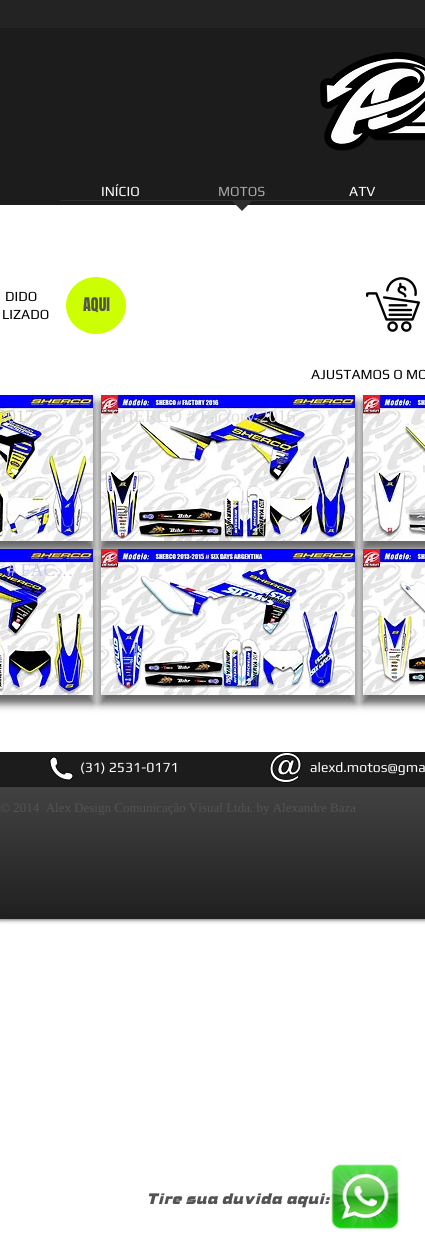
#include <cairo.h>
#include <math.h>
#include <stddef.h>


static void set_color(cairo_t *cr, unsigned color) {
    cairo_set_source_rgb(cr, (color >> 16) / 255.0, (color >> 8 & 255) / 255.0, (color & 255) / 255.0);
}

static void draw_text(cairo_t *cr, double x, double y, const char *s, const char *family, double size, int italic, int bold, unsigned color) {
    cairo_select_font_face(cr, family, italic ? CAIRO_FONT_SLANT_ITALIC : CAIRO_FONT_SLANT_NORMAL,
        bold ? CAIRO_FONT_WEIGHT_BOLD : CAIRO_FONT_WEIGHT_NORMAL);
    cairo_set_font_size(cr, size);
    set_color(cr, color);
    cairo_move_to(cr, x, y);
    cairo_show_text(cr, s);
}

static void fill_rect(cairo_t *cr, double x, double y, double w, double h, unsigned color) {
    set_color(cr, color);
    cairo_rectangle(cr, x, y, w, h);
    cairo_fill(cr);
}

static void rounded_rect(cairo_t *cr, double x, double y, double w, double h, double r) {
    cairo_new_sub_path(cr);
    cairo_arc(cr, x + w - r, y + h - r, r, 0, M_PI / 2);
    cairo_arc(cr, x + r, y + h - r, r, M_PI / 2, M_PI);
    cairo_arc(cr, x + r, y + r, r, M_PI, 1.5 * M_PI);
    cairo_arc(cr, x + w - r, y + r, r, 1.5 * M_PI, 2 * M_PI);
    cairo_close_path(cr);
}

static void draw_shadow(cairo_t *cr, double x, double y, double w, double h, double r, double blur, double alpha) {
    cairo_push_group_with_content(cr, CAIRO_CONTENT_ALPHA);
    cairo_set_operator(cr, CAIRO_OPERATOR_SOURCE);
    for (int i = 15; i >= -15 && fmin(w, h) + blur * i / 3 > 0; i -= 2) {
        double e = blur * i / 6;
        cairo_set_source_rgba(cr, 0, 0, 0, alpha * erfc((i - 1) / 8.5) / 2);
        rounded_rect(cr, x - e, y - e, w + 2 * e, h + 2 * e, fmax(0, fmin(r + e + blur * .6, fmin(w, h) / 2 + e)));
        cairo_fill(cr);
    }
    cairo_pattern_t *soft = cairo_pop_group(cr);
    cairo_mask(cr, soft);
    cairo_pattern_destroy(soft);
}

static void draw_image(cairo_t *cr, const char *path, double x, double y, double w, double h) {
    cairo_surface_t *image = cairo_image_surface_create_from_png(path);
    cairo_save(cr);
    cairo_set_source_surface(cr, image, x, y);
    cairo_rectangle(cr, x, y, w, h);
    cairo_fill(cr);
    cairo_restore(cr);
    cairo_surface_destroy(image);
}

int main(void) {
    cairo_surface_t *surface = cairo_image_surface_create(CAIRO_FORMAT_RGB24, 425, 1258);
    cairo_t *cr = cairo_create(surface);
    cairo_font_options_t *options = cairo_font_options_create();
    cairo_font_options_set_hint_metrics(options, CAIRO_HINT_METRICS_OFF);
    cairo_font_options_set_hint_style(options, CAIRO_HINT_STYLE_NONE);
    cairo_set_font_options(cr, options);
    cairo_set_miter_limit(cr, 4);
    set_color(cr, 0xFFFFFF);
    cairo_paint(cr);
    fill_rect(cr, 0, 0, 425, 28, 0x242323);
    fill_rect(cr, 0, 28, 425, 177, 0x1C1C1C);
    draw_image(cr, "assets/img1.png", 320, 52, 105, 99);
    draw_text(cr, 101, 196, "INÍCIO", "Play", 14, 0, 0, 0xFFFFFF);
    draw_text(cr, 218, 196, "MOTOS", "Play", 14, 0, 0, 0xA8A8A8);
    fill_rect(cr, 60, 200, 365, 1, 0x2F2E2E);
    cairo_new_path(cr);
    cairo_move_to(cr, 231, 200);
    cairo_line_to(cr, 253, 200);
    cairo_line_to(cr, 242, 211);
    cairo_close_path(cr);
    cairo_fill(cr);
    draw_text(cr, 349, 196, "ATV", "Play", 14, 0, 0, 0xFFFFFF);
    draw_text(cr, 5, 301, "DIDO", "Play", 14, 0, 0, 0x000000);
    draw_text(cr, 2, 319, "LIZADO", "Play", 14, 0, 0, 0x000000);
    draw_image(cr, "assets/img2.png", 366, 277, 54, 55);
    draw_text(cr, 311, 379, "AJUSTAMOS O MO", "Play", 14, 0, 0, 0x000000);
    set_color(cr, 0xCCFF00);
    cairo_new_path(cr);
    cairo_move_to(cr, 96, 277);
    cairo_curve_to(cr, 112.5, 277, 126, 290, 126, 305.5);
    cairo_curve_to(cr, 126, 321, 112.5, 334, 96, 334);
    cairo_curve_to(cr, 79.5, 334, 66, 321, 66, 305.5);
    cairo_curve_to(cr, 66, 290, 79.5, 277, 96, 277);
    cairo_close_path(cr);
    cairo_fill(cr);
    draw_text(cr, 83, 311, "AQUI", "Anton", 16, 0, 0, 0x535353);
    set_color(cr, 0x000000);
    draw_shadow(cr, -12, 402, 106, 148, 0, 4, 0.6);
    draw_image(cr, "assets/img3.png", 0, 395, 93, 146);
    draw_text(cr, -2, 422, "2017", "Liberation Serif", 18, 0, 0, 0xD5D5C0);
    set_color(cr, 0x000000);
    draw_shadow(cr, 100, 402, 256, 148, 0, 4, 0.6);
    draw_image(cr, "assets/img4.png", 101, 395, 254, 146);
    draw_text(cr, 111, 422, "SHERCO # Factory 2016", "Liberation Serif", 18, 0, 0, 0xDEDDDE);
    set_color(cr, 0x000000);
    draw_shadow(cr, 362, 402, 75, 148, 0, 4, 0.6);
    draw_image(cr, "assets/img5.png", 363, 395, 62, 146);
    draw_shadow(cr, -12, 556, 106, 148, 0, 4, 0.6);
    draw_image(cr, "assets/img6.png", 0, 549, 93, 146);
    draw_text(cr, 7, 576, "# FAC…", "Liberation Serif", 18, 0, 0, 0xCACAEC);
    set_color(cr, 0x000000);
    draw_shadow(cr, 100, 556, 256, 148, 0, 4, 0.6);
    draw_image(cr, "assets/img7.png", 101, 549, 254, 146);
    draw_shadow(cr, 362, 556, 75, 148, 0, 4, 0.6);
    draw_image(cr, "assets/img8.png", 363, 549, 62, 146);
    fill_rect(cr, 0, 752, 425, 35, 0x1C1C1C);
    draw_image(cr, "assets/img9.png", 49, 756, 25, 25);
    draw_text(cr, 80, 772, "(31) 2531-0171", "Play", 14, 0, 0, 0xFFFFFF);
    draw_image(cr, "assets/img10.png", 269, 752, 33, 31);
    draw_text(cr, 310, 772, "alexd.motos@gma", "Play", 14, 0, 0, 0xFFFFFF);
    fill_rect(cr, 0, 787, 425, 132, 0x000000);
    cairo_save(cr);
    cairo_set_fill_rule(cr, CAIRO_FILL_RULE_EVEN_ODD);
    cairo_new_path(cr);
    cairo_move_to(cr, 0, 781);
    cairo_line_to(cr, 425, 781);
    cairo_line_to(cr, 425, 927);
    cairo_line_to(cr, 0, 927);
    cairo_close_path(cr);
    cairo_move_to(cr, 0, 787);
    cairo_line_to(cr, 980, 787);
    cairo_line_to(cr, 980, 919);
    cairo_line_to(cr, 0, 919);
    cairo_close_path(cr);
    cairo_clip(cr);
    set_color(cr, 0x000000);
    draw_shadow(cr, 0, 788, 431, 132, 0, 2, 0.6);
    cairo_restore(cr);
    draw_image(cr, "assets/img11.png", 0, 787, 425, 132);
    draw_text(cr, 0, 812, "© 2014  Alex Design Comunicação Visual Ltda. by Alexandre Baza", "Liberation Serif", 13, 0, 0, 0x535353);
    draw_text(cr, 146, 1204, "Tire sua duvida aqui:", "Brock", 14, 1, 1, 0x535353);
    draw_image(cr, "assets/img12.png", 331, 1164, 68, 65);
    cairo_surface_write_to_png(surface, "output.png");
    cairo_font_options_destroy(options);
    cairo_destroy(cr);
    cairo_surface_destroy(surface);
    return 0;
}
